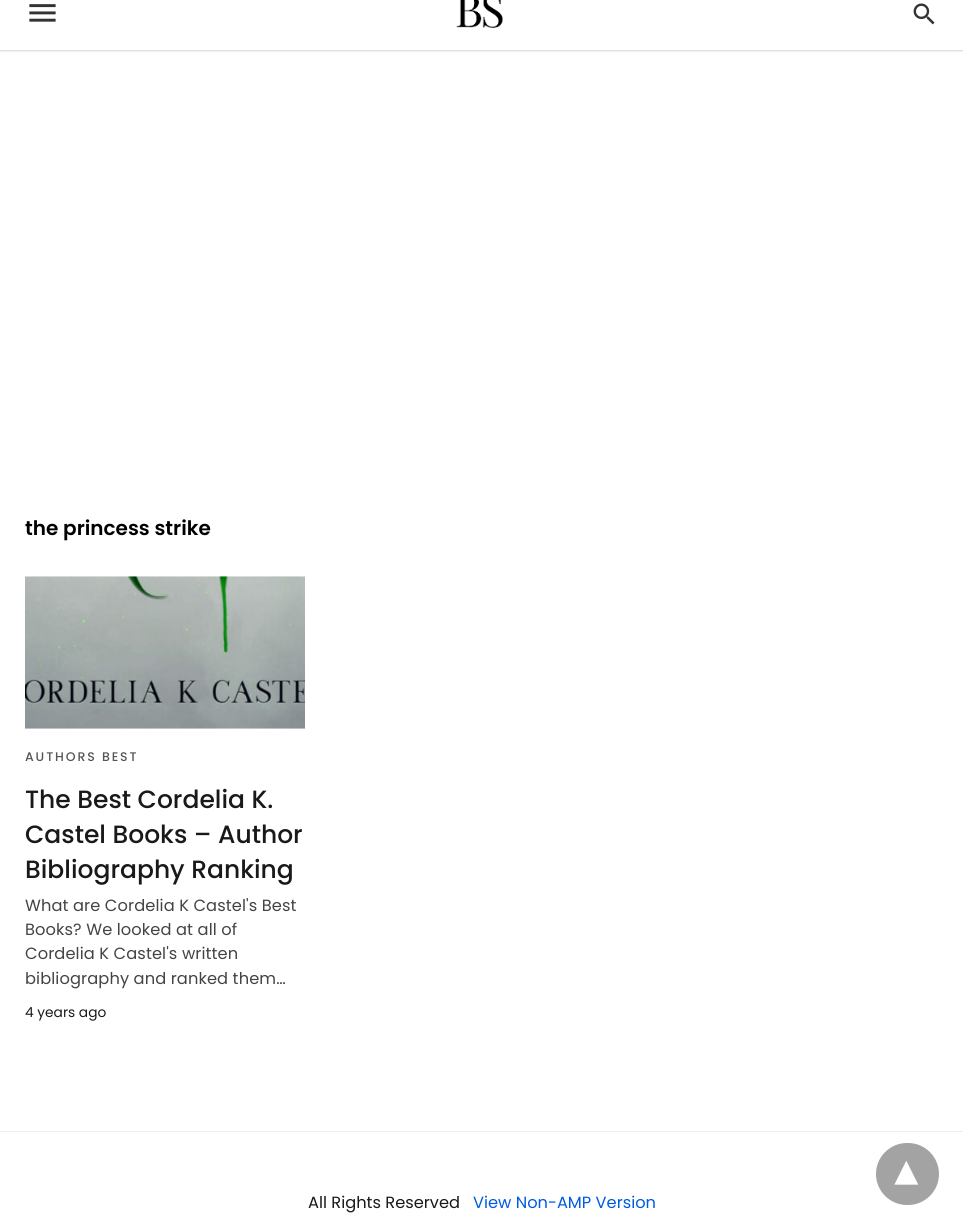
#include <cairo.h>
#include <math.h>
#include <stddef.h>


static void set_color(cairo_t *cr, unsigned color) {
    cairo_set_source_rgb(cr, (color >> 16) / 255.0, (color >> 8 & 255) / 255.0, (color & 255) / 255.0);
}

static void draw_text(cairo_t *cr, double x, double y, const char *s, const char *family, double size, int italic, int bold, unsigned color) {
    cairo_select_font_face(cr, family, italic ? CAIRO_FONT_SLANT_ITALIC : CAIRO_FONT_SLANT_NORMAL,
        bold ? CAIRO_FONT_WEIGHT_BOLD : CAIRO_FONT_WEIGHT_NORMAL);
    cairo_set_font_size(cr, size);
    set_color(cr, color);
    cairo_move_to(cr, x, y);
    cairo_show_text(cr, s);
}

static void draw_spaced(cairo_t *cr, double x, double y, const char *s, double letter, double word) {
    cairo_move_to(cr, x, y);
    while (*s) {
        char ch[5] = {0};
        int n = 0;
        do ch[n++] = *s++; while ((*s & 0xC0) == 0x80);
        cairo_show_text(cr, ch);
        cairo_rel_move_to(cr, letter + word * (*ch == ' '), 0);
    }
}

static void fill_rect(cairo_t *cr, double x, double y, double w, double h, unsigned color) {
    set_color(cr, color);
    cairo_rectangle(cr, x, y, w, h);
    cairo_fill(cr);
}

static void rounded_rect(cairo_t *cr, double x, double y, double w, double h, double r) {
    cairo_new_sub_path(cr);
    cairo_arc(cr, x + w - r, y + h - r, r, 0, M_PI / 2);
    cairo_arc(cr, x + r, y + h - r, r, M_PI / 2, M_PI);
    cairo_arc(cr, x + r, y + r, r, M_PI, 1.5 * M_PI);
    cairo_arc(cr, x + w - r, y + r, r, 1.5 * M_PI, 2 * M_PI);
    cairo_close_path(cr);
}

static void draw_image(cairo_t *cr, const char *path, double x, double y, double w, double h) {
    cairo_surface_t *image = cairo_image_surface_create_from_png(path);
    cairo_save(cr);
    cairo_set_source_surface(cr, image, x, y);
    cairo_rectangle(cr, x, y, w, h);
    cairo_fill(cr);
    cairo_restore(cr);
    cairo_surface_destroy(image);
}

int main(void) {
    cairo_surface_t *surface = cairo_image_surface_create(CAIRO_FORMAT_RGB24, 963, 1230);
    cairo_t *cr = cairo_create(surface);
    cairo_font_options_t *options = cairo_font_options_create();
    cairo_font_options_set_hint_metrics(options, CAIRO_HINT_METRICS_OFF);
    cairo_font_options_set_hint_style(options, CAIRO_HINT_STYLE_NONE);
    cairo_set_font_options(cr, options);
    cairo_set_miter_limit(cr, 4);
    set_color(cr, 0xFFFFFF);
    cairo_paint(cr);
    fill_rect(cr, 0, 50, 963, 1, 0xE0E0E0);
    draw_image(cr, "assets/img1.png", 29, 4, 27, 18);
    draw_image(cr, "assets/img2.png", 456, 0, 47, 28);
    draw_image(cr, "assets/img3.png", 913, 3, 22, 22);
    fill_rect(cr, 0, 51, 963, 1, 0xF2F2F2);
    draw_text(cr, 25, 535, "the princess strike", "Poppins SemiBold", 20, 0, 0, 0x000000);
    draw_image(cr, "assets/img4.png", 25, 576, 280, 153);
    cairo_select_font_face(cr, "Poppins Medium", CAIRO_FONT_SLANT_NORMAL, CAIRO_FONT_WEIGHT_NORMAL);
    cairo_set_font_size(cr, 12.5);
    set_color(cr, 0x555555);
    draw_spaced(cr, 25, 761, "AUTHORS BEST", 1.9, 0);
    draw_text(cr, 25, 808, "The Best Cordelia K.", "Poppins Medium", 25, 0, 0, 0x191919);
    draw_text(cr, 25, 843, "Castel Books – Author", "Poppins Medium", 25, 0, 0, 0x191919);
    draw_text(cr, 25, 878, "Bibliography Ranking", "Poppins Medium", 25, 0, 0, 0x191919);
    cairo_select_font_face(cr, "Poppins", CAIRO_FONT_SLANT_NORMAL, CAIRO_FONT_WEIGHT_NORMAL);
    cairo_set_font_size(cr, 16.25);
    set_color(cr, 0x444444);
    draw_spaced(cr, 25, 911, "What are Cordelia K Castel's Best", 0.1, 0);
    draw_spaced(cr, 25, 935, "Books? We looked at all of", 0.1, 0);
    draw_spaced(cr, 25, 959, "Cordelia K Castel's written", 0.1, 0);
    draw_spaced(cr, 25, 984, "bibliography and ranked them…", 0.1, 0);
    draw_text(cr, 25, 1017, "4 years ago", "Poppins", 13.75, 0, 0, 0x191919);
    set_color(cr, 0xA3A3A3);
    rounded_rect(cr, 876, 1143, 63, 62, 31);
    cairo_fill(cr);
    cairo_save(cr);
    cairo_translate(cr, 918, 1161);
    cairo_rotate(cr, 180 * M_PI / 180);
    draw_text(cr, 0, 0, "▾", "DejaVu Sans", 44, 0, 1, 0xFFFFFF);
    cairo_restore(cr);
    fill_rect(cr, 0, 1131, 963, 1, 0xEEEEEE);
    draw_text(cr, 308, 1208, "All Rights Reserved", "Poppins", 16.25, 0, 0, 0x191919);
    draw_text(cr, 473, 1208, "View Non-AMP Version", "Poppins", 16.25, 0, 0, 0x005BE2);
    cairo_surface_write_to_png(surface, "output.png");
    cairo_font_options_destroy(options);
    cairo_destroy(cr);
    cairo_surface_destroy(surface);
    return 0;
}
